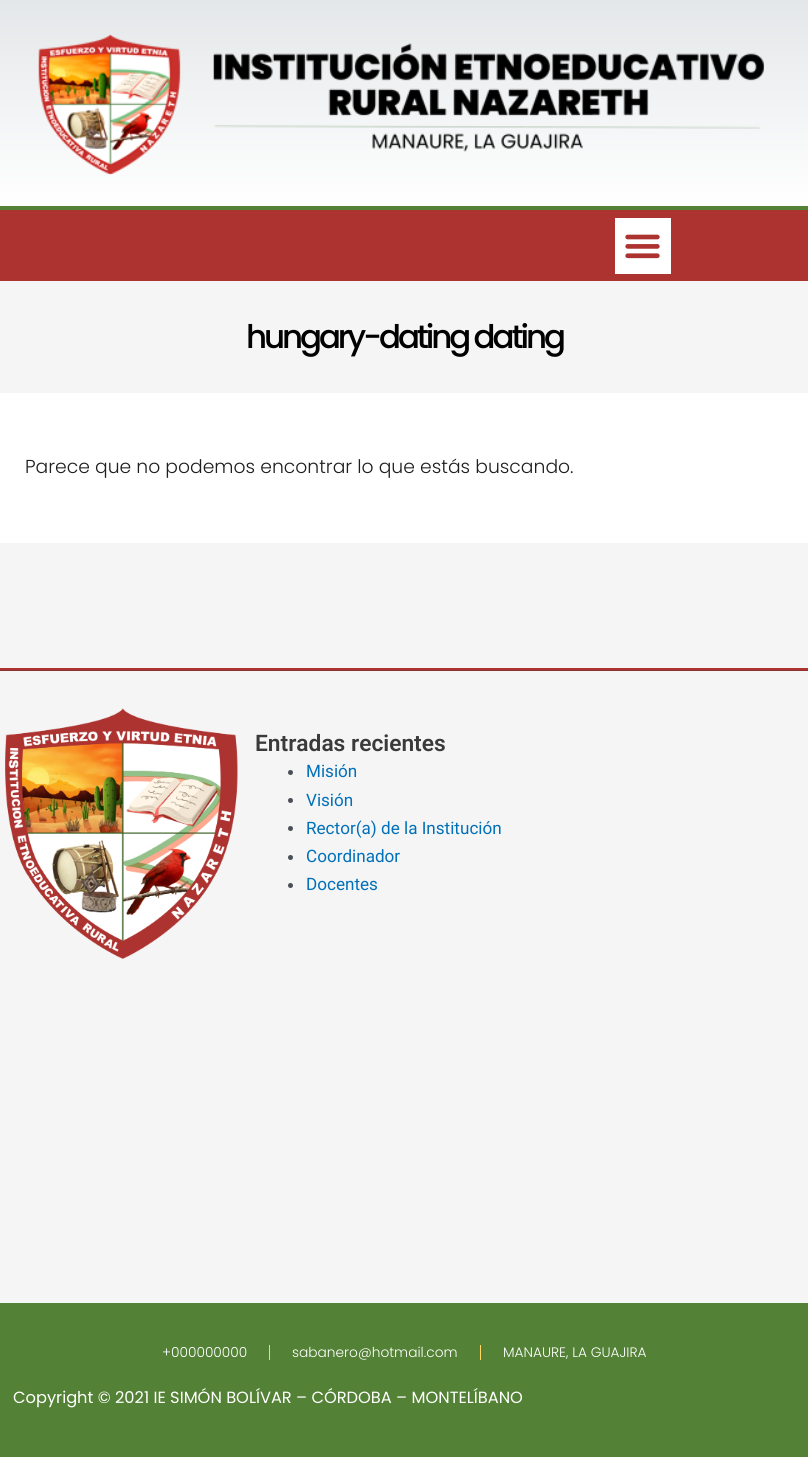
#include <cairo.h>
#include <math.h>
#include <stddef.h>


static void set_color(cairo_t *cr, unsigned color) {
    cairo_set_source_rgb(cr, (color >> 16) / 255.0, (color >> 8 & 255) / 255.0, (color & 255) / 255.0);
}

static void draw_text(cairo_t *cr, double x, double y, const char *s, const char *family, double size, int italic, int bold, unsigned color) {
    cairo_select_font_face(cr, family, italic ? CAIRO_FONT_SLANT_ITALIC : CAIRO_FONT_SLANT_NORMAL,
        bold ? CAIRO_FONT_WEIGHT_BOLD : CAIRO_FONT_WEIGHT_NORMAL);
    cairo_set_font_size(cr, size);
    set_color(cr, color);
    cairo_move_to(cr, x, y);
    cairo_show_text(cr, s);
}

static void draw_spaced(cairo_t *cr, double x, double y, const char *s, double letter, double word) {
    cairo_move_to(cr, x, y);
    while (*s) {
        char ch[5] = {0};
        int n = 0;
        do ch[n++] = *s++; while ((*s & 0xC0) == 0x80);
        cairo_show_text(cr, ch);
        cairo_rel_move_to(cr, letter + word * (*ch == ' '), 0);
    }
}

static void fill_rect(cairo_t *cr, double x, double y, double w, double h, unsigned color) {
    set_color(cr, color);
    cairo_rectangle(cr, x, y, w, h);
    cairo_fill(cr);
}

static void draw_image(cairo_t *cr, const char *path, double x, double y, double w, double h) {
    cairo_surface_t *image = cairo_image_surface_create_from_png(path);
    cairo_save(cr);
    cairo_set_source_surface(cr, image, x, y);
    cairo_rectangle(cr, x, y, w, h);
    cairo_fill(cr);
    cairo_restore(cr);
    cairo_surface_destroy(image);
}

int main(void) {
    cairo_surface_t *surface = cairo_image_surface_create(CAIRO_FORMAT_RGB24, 808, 1457);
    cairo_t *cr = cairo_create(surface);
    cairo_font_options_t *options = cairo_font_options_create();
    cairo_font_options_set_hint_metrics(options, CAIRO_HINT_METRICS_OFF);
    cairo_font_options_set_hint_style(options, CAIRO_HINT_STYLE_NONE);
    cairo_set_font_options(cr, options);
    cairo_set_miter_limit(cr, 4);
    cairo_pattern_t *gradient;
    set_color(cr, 0xF5F5F5);
    cairo_paint(cr);
    gradient = cairo_pattern_create_linear(404, 0, 404, 206);
    cairo_pattern_add_color_stop_rgba(gradient, 0, 0.894, 0.906, 0.914, 1);
    cairo_pattern_add_color_stop_rgba(gradient, 1, 1, 1, 1, 1);
    cairo_set_source(cr, gradient);
    cairo_pattern_destroy(gradient);
    cairo_rectangle(cr, 0, 0, 808, 206);
    cairo_fill(cr);
    draw_image(cr, "assets/img1.png", 38, 34, 727, 141);
    fill_rect(cr, 0, 210, 808, 71, 0xAC332F);
    fill_rect(cr, 0, 206, 808, 4, 0x538135);
    fill_rect(cr, 615, 218, 56, 56, 0xFFFFFF);
    draw_image(cr, "assets/img2.png", 625, 234, 35, 25);
    cairo_select_font_face(cr, "Poppins Medium", CAIRO_FONT_SLANT_NORMAL, CAIRO_FONT_WEIGHT_NORMAL);
    cairo_set_font_size(cr, 32.5);
    set_color(cr, 0x000000);
    draw_spaced(cr, 246, 348, "hungary-dating dating", -3.1, 0);
    fill_rect(cr, 0, 393, 808, 150, 0xFFFFFF);
    draw_text(cr, 25, 473, "Parece que no podemos encontrar lo que estás buscando.", "Poppins Light", 18.75, 0, 0, 0x1E1E1E);
    fill_rect(cr, 0, 668, 808, 2, 0xAC332F);
    fill_rect(cr, 0, 670, 808, 1, 0x8A3331);
    draw_image(cr, "assets/img3.png", 5, 708, 233, 251);
    draw_text(cr, 255, 751, "Entradas recientes", "Roboto SemiBold", 22.75, 0, 0, 0x3A3A3A);
    set_color(cr, 0x4B4F58);
    cairo_new_path(cr);
    cairo_arc(cr, 290.5, 772.5, 2.5, 0, 2 * M_PI);
    cairo_fill(cr);
    draw_text(cr, 306, 777, "Misión", "Roboto", 17.1, 0, 0, 0x0170B9);
    set_color(cr, 0x4B4F58);
    cairo_new_path(cr);
    cairo_arc(cr, 290.5, 800.5, 2.5, 0, 2 * M_PI);
    cairo_fill(cr);
    draw_text(cr, 306, 806, "Visión", "Roboto", 17.1, 0, 0, 0x0170B9);
    set_color(cr, 0x4B4F58);
    cairo_new_path(cr);
    cairo_arc(cr, 290.5, 828.5, 2.5, 0, 2 * M_PI);
    cairo_fill(cr);
    draw_text(cr, 306, 834, "Rector(a) de la Institución", "Roboto", 17.1, 0, 0, 0x0170B9);
    set_color(cr, 0x4B4F58);
    cairo_new_path(cr);
    cairo_arc(cr, 290.5, 857.5, 2.5, 0, 2 * M_PI);
    cairo_fill(cr);
    draw_text(cr, 306, 862, "Coordinador", "Roboto", 17.1, 0, 0, 0x0170B9);
    set_color(cr, 0x4B4F58);
    cairo_new_path(cr);
    cairo_arc(cr, 290.5, 885.5, 2.5, 0, 2 * M_PI);
    cairo_fill(cr);
    draw_text(cr, 306, 890, "Docentes", "Roboto", 17.1, 0, 0, 0x0170B9);
    fill_rect(cr, 0, 1303, 808, 154, 0x538135);
    draw_text(cr, 162, 1357, "+000000000", "Poppins Light", 13.75, 0, 0, 0xFFFFFF);
    fill_rect(cr, 269, 1345, 1, 15, 0xFFD664);
    draw_text(cr, 292, 1357, "sabanero@hotmail.com", "Poppins Light", 13.75, 0, 0, 0xFFFFFF);
    fill_rect(cr, 480, 1345, 1, 15, 0xFFD664);
    draw_text(cr, 503, 1357, "MANAURE, LA GUAJIRA", "Poppins Light", 13.75, 0, 0, 0xFFFFFF);
    draw_text(cr, 13, 1403, "Copyright © 2021 IE SIMÓN BOLÍVAR – CÓRDOBA – MONTELÍBANO", "Poppins", 16.25, 0, 0, 0xFFFFFF);
    cairo_surface_write_to_png(surface, "output.png");
    cairo_font_options_destroy(options);
    cairo_destroy(cr);
    cairo_surface_destroy(surface);
    return 0;
}
